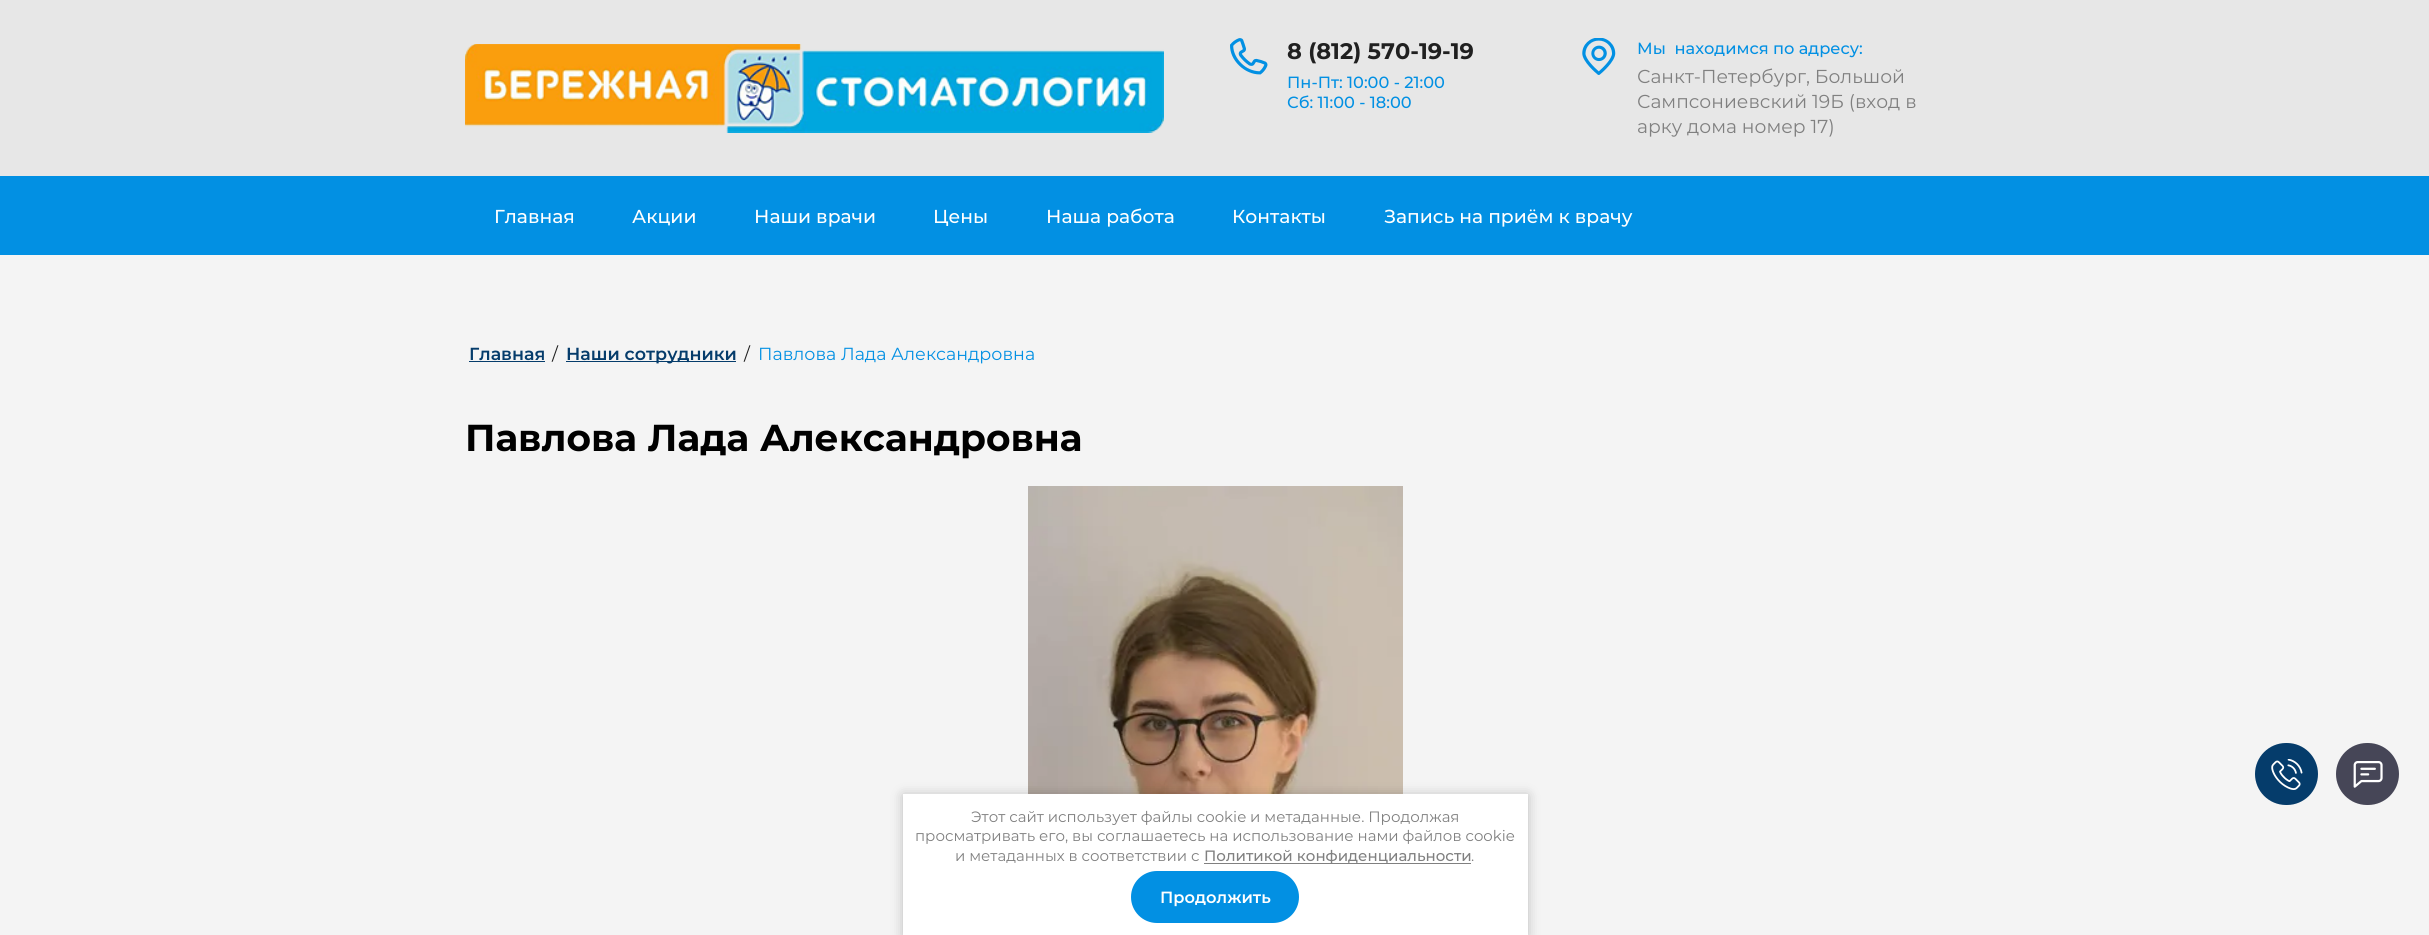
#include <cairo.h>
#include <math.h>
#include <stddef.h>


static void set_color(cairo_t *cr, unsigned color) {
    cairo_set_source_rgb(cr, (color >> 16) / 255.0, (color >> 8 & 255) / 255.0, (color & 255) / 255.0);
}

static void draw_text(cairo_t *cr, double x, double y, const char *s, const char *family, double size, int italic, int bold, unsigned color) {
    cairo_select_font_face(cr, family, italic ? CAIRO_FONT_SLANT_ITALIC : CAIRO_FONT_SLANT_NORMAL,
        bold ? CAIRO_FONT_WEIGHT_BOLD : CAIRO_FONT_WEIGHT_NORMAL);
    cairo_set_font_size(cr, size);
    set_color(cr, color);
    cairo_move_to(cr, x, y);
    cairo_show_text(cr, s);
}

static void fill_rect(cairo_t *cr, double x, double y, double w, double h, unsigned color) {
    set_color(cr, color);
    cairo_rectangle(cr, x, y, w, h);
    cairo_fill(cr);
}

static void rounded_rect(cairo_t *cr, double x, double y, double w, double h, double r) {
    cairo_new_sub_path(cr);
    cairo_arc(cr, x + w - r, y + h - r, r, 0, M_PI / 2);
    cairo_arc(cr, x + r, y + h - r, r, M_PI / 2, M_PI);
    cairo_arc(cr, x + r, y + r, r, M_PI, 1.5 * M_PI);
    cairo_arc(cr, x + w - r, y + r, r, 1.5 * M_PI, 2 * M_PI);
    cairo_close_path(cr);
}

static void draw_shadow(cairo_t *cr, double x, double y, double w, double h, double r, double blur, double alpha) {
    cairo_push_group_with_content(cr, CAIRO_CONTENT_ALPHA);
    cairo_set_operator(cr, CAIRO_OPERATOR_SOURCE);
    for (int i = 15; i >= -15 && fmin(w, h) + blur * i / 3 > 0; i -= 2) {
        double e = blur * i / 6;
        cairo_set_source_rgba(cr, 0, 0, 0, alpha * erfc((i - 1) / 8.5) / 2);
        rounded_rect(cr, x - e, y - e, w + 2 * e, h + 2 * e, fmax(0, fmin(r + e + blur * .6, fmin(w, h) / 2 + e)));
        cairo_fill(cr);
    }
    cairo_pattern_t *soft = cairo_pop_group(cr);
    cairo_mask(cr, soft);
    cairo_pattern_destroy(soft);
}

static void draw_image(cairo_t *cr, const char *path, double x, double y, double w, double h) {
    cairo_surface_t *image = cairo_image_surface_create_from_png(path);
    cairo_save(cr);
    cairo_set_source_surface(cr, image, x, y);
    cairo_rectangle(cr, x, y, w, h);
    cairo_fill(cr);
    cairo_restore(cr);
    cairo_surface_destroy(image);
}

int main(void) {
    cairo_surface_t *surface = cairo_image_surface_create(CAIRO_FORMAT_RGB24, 2429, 935);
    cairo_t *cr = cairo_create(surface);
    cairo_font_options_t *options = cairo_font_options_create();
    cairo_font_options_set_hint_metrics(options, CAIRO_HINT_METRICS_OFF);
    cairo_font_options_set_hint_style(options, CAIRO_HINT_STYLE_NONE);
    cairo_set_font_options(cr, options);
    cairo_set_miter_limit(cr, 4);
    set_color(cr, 0xE7E7E7);
    cairo_paint(cr);
    draw_image(cr, "assets/img1.png", 465, 44, 699, 89);
    draw_image(cr, "assets/img2.png", 1230, 38, 38, 37);
    draw_text(cr, 1287, 59, "8 (812) 570-19-19", "Montserrat", 22.5, 0, 1, 0x202020);
    draw_text(cr, 1287, 88, "Пн-Пт: 10:00 - 21:00", "Montserrat Medium", 16.25, 0, 0, 0x0290E3);
    draw_text(cr, 1287, 108, "Сб: 11:00 - 18:00", "Montserrat Medium", 16.25, 0, 0, 0x0290E3);
    draw_image(cr, "assets/img3.png", 1582, 38, 34, 37);
    draw_text(cr, 1637, 54, "Мы  находимся по адресу:", "Montserrat Medium", 16.25, 0, 0, 0x0290E3);
    draw_text(cr, 1637, 83, "Санкт-Петербург, Большой", "Montserrat", 18.75, 0, 0, 0x808080);
    draw_text(cr, 1637, 108, "Сампсониевский 19Б (вход в", "Montserrat", 18.75, 0, 0, 0x808080);
    draw_text(cr, 1637, 133, "арку дома номер 17)", "Montserrat", 18.75, 0, 0, 0x808080);
    fill_rect(cr, 0, 176, 2429, 79, 0x0290E3);
    draw_text(cr, 494, 223, "Главная", "Montserrat Medium", 18.75, 0, 0, 0xFFFFFF);
    draw_text(cr, 632, 223, "Акции", "Montserrat Medium", 18.75, 0, 0, 0xFFFFFF);
    draw_text(cr, 754, 223, "Наши врачи", "Montserrat Medium", 18.75, 0, 0, 0xFFFFFF);
    draw_text(cr, 933, 223, "Цены", "Montserrat Medium", 18.75, 0, 0, 0xFFFFFF);
    draw_text(cr, 1046, 223, "Наша работа", "Montserrat Medium", 18.75, 0, 0, 0xFFFFFF);
    draw_text(cr, 1232, 223, "Контакты", "Montserrat Medium", 18.75, 0, 0, 0xFFFFFF);
    draw_text(cr, 1384, 223, "Запись на приём к врачу", "Montserrat Medium", 18.75, 0, 0, 0xFFFFFF);
    fill_rect(cr, 0, 255, 2429, 680, 0xF4F4F4);
    draw_text(cr, 469, 360, "Главная", "Montserrat SemiBold", 17.5, 0, 0, 0x053C6B);
    fill_rect(cr, 469, 361, 76, 1, 0x053C6B);
    draw_text(cr, 552, 360, "/", "Montserrat", 17.5, 0, 0, 0x202020);
    fill_rect(cr, 566, 361, 170, 1, 0x053C6B);
    draw_text(cr, 566, 360, "Наши сотрудники", "Montserrat SemiBold", 17.5, 0, 0, 0x053C6B);
    draw_text(cr, 744, 360, "/", "Montserrat", 17.5, 0, 0, 0x202020);
    draw_text(cr, 758, 360, "Павлова Лада Александровна", "Montserrat", 17.5, 0, 0, 0x0290E3);
    draw_text(cr, 465, 451, "Павлова Лада Александровна", "Montserrat", 37.5, 0, 1, 0x000000);
    draw_image(cr, "assets/img4.png", 1028, 486, 375, 308);
    set_color(cr, 0x053C6B);
    rounded_rect(cr, 2255, 743, 63, 62, 31);
    cairo_fill(cr);
    draw_image(cr, "assets/img5.png", 2271, 759, 32, 31);
    set_color(cr, 0x464657);
    rounded_rect(cr, 2336, 743, 63, 62, 31);
    cairo_fill(cr);
    draw_image(cr, "assets/img6.png", 2353, 761, 30, 27);
    set_color(cr, 0x000000);
    draw_shadow(cr, 903, 795, 625, 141, 0, 6, 0.23);
    fill_rect(cr, 903, 794, 625, 141, 0xFFFFFF);
    draw_text(cr, 971, 822, "Этот сайт использует файлы cookie и метаданные. Продолжая", "Montserrat", 15, 0, 0, 0x808080);
    draw_text(cr, 915, 841, "просматривать его, вы соглашаетесь на использование нами файлов cookie", "Montserrat", 15, 0, 0, 0x808080);
    draw_text(cr, 955, 861, "и метаданных в соответствии с", "Montserrat", 15, 0, 0, 0x808080);
    fill_rect(cr, 1204, 863, 267, 1, 0x808080);
    draw_text(cr, 1204, 861, "Политикой конфиденциальности", "Montserrat Medium", 15, 0, 0, 0x808080);
    draw_text(cr, 1471, 861, ".", "Montserrat", 15, 0, 0, 0x808080);
    set_color(cr, 0x0290E3);
    rounded_rect(cr, 1131, 871, 168, 52, 26);
    cairo_fill(cr);
    draw_text(cr, 1160, 903, "Продолжить", "Montserrat SemiBold", 16.25, 0, 0, 0xFFFFFF);
    cairo_surface_write_to_png(surface, "output.png");
    cairo_font_options_destroy(options);
    cairo_destroy(cr);
    cairo_surface_destroy(surface);
    return 0;
}
